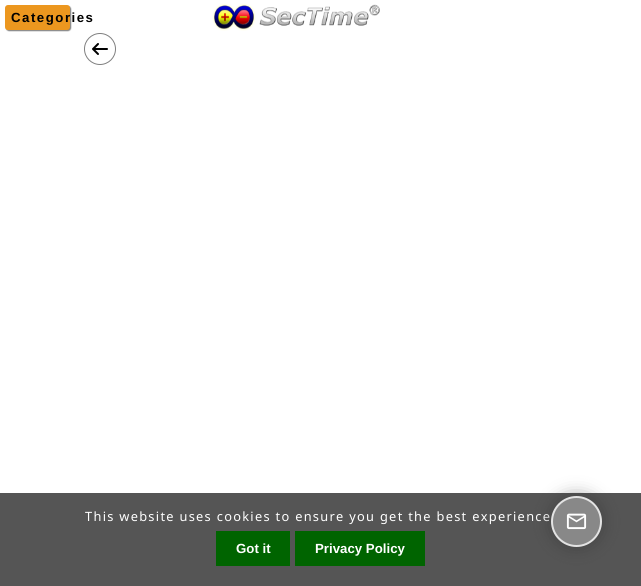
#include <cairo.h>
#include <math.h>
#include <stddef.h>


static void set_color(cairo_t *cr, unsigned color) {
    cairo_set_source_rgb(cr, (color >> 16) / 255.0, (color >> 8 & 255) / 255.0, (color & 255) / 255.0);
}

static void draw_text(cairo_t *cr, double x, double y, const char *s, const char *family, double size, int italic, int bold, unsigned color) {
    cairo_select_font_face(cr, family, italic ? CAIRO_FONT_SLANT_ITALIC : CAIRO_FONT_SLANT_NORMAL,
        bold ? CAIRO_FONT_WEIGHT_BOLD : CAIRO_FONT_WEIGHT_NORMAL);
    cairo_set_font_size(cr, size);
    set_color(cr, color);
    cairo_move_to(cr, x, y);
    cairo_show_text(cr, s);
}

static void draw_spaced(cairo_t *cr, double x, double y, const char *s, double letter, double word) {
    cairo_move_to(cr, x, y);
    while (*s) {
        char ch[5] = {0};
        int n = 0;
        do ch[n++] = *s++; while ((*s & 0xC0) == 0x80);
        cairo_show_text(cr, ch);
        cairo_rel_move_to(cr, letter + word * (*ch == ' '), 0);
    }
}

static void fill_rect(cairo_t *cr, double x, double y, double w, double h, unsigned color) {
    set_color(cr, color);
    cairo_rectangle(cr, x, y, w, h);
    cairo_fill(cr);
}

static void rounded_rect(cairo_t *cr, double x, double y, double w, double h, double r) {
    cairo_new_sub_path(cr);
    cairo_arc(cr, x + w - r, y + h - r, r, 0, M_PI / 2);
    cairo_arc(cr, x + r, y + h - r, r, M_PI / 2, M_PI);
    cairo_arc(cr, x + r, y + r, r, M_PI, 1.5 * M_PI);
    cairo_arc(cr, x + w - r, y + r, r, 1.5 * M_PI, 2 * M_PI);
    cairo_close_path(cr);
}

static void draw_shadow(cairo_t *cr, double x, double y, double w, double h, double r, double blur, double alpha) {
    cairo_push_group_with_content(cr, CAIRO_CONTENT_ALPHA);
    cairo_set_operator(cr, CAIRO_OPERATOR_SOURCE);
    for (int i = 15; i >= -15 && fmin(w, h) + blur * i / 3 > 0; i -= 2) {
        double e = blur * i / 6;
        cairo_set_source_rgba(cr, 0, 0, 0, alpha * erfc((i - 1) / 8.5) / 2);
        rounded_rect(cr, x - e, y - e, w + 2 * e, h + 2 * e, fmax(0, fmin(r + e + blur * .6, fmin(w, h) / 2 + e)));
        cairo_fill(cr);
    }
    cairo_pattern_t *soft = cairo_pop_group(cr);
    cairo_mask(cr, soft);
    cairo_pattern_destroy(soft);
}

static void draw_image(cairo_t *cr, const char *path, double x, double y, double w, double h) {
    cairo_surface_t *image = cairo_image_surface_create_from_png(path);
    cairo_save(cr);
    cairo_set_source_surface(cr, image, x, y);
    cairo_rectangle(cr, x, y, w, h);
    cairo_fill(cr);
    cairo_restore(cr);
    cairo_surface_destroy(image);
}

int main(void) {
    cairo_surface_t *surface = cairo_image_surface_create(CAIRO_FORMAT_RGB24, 641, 586);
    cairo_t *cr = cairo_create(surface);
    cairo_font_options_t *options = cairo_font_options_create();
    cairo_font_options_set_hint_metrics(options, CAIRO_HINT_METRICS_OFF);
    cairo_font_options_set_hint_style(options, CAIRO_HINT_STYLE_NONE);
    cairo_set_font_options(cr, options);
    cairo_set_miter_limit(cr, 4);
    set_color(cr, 0xFFFFFF);
    cairo_paint(cr);
    set_color(cr, 0x808080);
    draw_shadow(cr, 6, 6, 65, 25, 3, 0.5, 1);
    set_color(cr, 0xEC971F);
    rounded_rect(cr, 5, 5, 65, 25, 3);
    cairo_fill(cr);
    cairo_select_font_face(cr, "Liberation Sans", CAIRO_FONT_SLANT_NORMAL, CAIRO_FONT_WEIGHT_BOLD);
    cairo_set_font_size(cr, 13.25);
    set_color(cr, 0x000000);
    draw_spaced(cr, 11, 22, "Categories", 1.5, 0);
    draw_image(cr, "assets/img1.png", 212, 3, 168, 28);
    cairo_arc(cr, 100, 49, 15.5, 0, 2 * M_PI);
    set_color(cr, 0x808080);
    cairo_set_line_width(cr, 1);
    cairo_stroke(cr);
    draw_image(cr, "assets/img2.png", 92, 43, 16, 12);
    fill_rect(cr, 0, 493, 641, 93, 0x555555);
    cairo_select_font_face(cr, "Noto Sans", CAIRO_FONT_SLANT_NORMAL, CAIRO_FONT_WEIGHT_NORMAL);
    cairo_set_font_size(cr, 12.8);
    set_color(cr, 0xFFFFFF);
    draw_spaced(cr, 85, 521, "This website uses cookies to ensure you get the best experience", 1.3, 0);
    fill_rect(cr, 216, 531, 74, 35, 0x006400);
    draw_text(cr, 236, 553, "Got it", "Liberation Sans", 13.25, 0, 1, 0xFFFFFF);
    fill_rect(cr, 295, 531, 130, 35, 0x006400);
    draw_text(cr, 315, 553, "Privacy Policy", "Liberation Sans", 13.25, 0, 1, 0xFFFFFF);
    set_color(cr, 0x323232);
    draw_shadow(cr, 551, 496, 51, 51, 25.5, 8.5, 0.5);
    set_color(cr, 0x888888);
    cairo_arc(cr, 576.5, 521.5, 24.5, 0, 2 * M_PI);
    cairo_fill_preserve(cr);
    set_color(cr, 0xE3E3E3);
    cairo_set_line_width(cr, 2);
    cairo_stroke(cr);
    draw_image(cr, "assets/img3.png", 566, 513, 21, 17);
    cairo_surface_write_to_png(surface, "output.png");
    cairo_font_options_destroy(options);
    cairo_destroy(cr);
    cairo_surface_destroy(surface);
    return 0;
}
